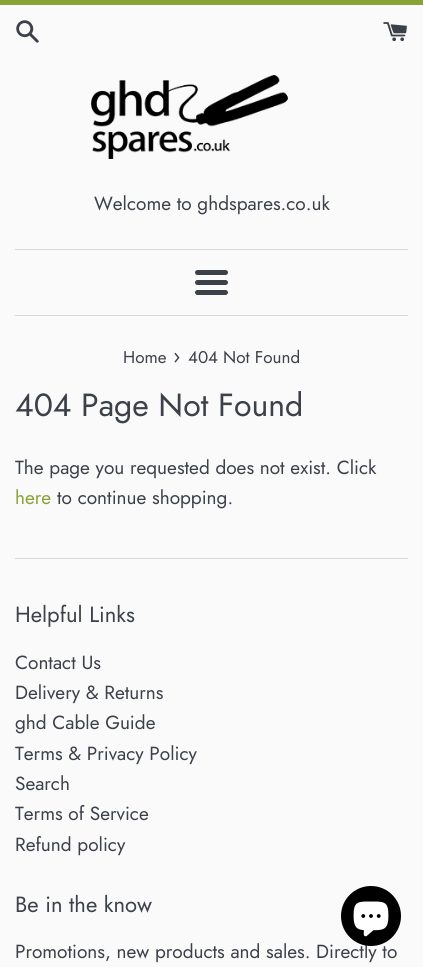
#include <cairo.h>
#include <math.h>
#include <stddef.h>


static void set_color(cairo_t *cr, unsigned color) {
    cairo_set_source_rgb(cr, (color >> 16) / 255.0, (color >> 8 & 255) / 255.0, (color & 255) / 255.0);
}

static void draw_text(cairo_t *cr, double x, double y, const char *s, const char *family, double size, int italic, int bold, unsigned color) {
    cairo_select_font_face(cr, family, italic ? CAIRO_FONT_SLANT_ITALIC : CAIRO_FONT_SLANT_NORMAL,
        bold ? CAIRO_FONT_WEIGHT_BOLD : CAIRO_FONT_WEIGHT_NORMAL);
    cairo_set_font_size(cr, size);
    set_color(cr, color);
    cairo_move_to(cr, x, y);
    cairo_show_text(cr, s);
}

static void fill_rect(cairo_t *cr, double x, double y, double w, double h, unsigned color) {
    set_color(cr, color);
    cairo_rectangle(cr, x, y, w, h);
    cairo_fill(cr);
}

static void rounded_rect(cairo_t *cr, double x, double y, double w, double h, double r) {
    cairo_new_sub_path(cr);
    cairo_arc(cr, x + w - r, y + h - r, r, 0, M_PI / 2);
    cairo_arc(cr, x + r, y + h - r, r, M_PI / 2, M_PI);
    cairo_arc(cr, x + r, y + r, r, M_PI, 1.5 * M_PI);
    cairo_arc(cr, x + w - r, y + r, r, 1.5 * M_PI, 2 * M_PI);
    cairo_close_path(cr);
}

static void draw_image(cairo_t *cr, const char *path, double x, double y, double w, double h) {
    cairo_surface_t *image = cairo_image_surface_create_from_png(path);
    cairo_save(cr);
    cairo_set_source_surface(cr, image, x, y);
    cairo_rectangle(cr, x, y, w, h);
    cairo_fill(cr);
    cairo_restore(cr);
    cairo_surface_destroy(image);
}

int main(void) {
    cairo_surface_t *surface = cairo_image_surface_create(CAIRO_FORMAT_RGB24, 423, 967);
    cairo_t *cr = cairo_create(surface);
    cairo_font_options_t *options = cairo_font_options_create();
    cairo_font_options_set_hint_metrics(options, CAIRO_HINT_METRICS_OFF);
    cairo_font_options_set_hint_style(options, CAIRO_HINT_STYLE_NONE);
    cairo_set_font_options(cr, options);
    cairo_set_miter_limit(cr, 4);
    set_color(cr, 0xFAFAFA);
    cairo_paint(cr);
    fill_rect(cr, 0, 0, 423, 5, 0x88A435);
    draw_image(cr, "assets/img1.png", 16, 20, 23, 23);
    draw_image(cr, "assets/img2.png", 383, 22, 24, 20);
    draw_image(cr, "assets/img3.png", 91, 75, 197, 84);
    draw_text(cr, 94, 210, "Welcome to ghdspares.co.uk", "Jost", 19, 0, 0, 0x3C4049);
    fill_rect(cr, 15, 249, 393, 1, 0xD7D8D2);
    set_color(cr, 0x3C4049);
    rounded_rect(cr, 195, 270, 33, 5, 2.5);
    cairo_fill(cr);
    rounded_rect(cr, 195, 280, 33, 5, 2.5);
    cairo_fill(cr);
    rounded_rect(cr, 195, 290, 33, 5, 2.5);
    cairo_fill(cr);
    fill_rect(cr, 15, 315, 393, 1, 0xD7D8D2);
    draw_text(cr, 123, 363, "Home", "Jost", 17, 0, 0, 0x3C4049);
    draw_text(cr, 173, 363, "›", "Jost", 21, 0, 0, 0x3C4049);
    draw_text(cr, 188, 363, "404 Not Found", "Jost", 17, 0, 0, 0x3C4049);
    draw_text(cr, 15, 416, "404 Page Not Found", "Jost", 32, 0, 0, 0x3C4049);
    draw_text(cr, 15, 474, "The page you requested does not exist. Click", "Jost", 19, 0, 0, 0x3C4049);
    draw_text(cr, 15, 504, "here", "Jost", 19, 0, 0, 0x88A435);
    draw_text(cr, 57, 504, "to continue shopping.", "Jost", 19, 0, 0, 0x3C4049);
    fill_rect(cr, 15, 558, 393, 1, 0xD7D8D2);
    draw_text(cr, 15, 622, "Helpful Links", "Jost", 22, 0, 0, 0x3C4049);
    draw_text(cr, 15, 669, "Contact Us", "Jost", 19, 0, 0, 0x3C4049);
    draw_text(cr, 15, 699, "Delivery & Returns", "Jost", 19, 0, 0, 0x3C4049);
    draw_text(cr, 15, 729, "ghd Cable Guide", "Jost", 19, 0, 0, 0x3C4049);
    draw_text(cr, 15, 760, "Terms & Privacy Policy", "Jost", 19, 0, 0, 0x3C4049);
    draw_text(cr, 15, 790, "Search", "Jost", 19, 0, 0, 0x3C4049);
    draw_text(cr, 15, 820, "Terms of Service", "Jost", 19, 0, 0, 0x3C4049);
    draw_text(cr, 15, 851, "Refund policy", "Jost", 19, 0, 0, 0x3C4049);
    draw_text(cr, 15, 912, "Be in the know", "Jost", 22, 0, 0, 0x3C4049);
    draw_text(cr, 15, 958, "Promotions, new products and sales. Directly to", "Jost", 19, 0, 0, 0x3C4049);
    set_color(cr, 0x000000);
    cairo_new_path(cr);
    cairo_arc(cr, 371, 916, 30, 0, 2 * M_PI);
    cairo_fill(cr);
    draw_image(cr, "assets/img4.png", 353, 901, 36, 36);
    cairo_surface_write_to_png(surface, "output.png");
    cairo_font_options_destroy(options);
    cairo_destroy(cr);
    cairo_surface_destroy(surface);
    return 0;
}
